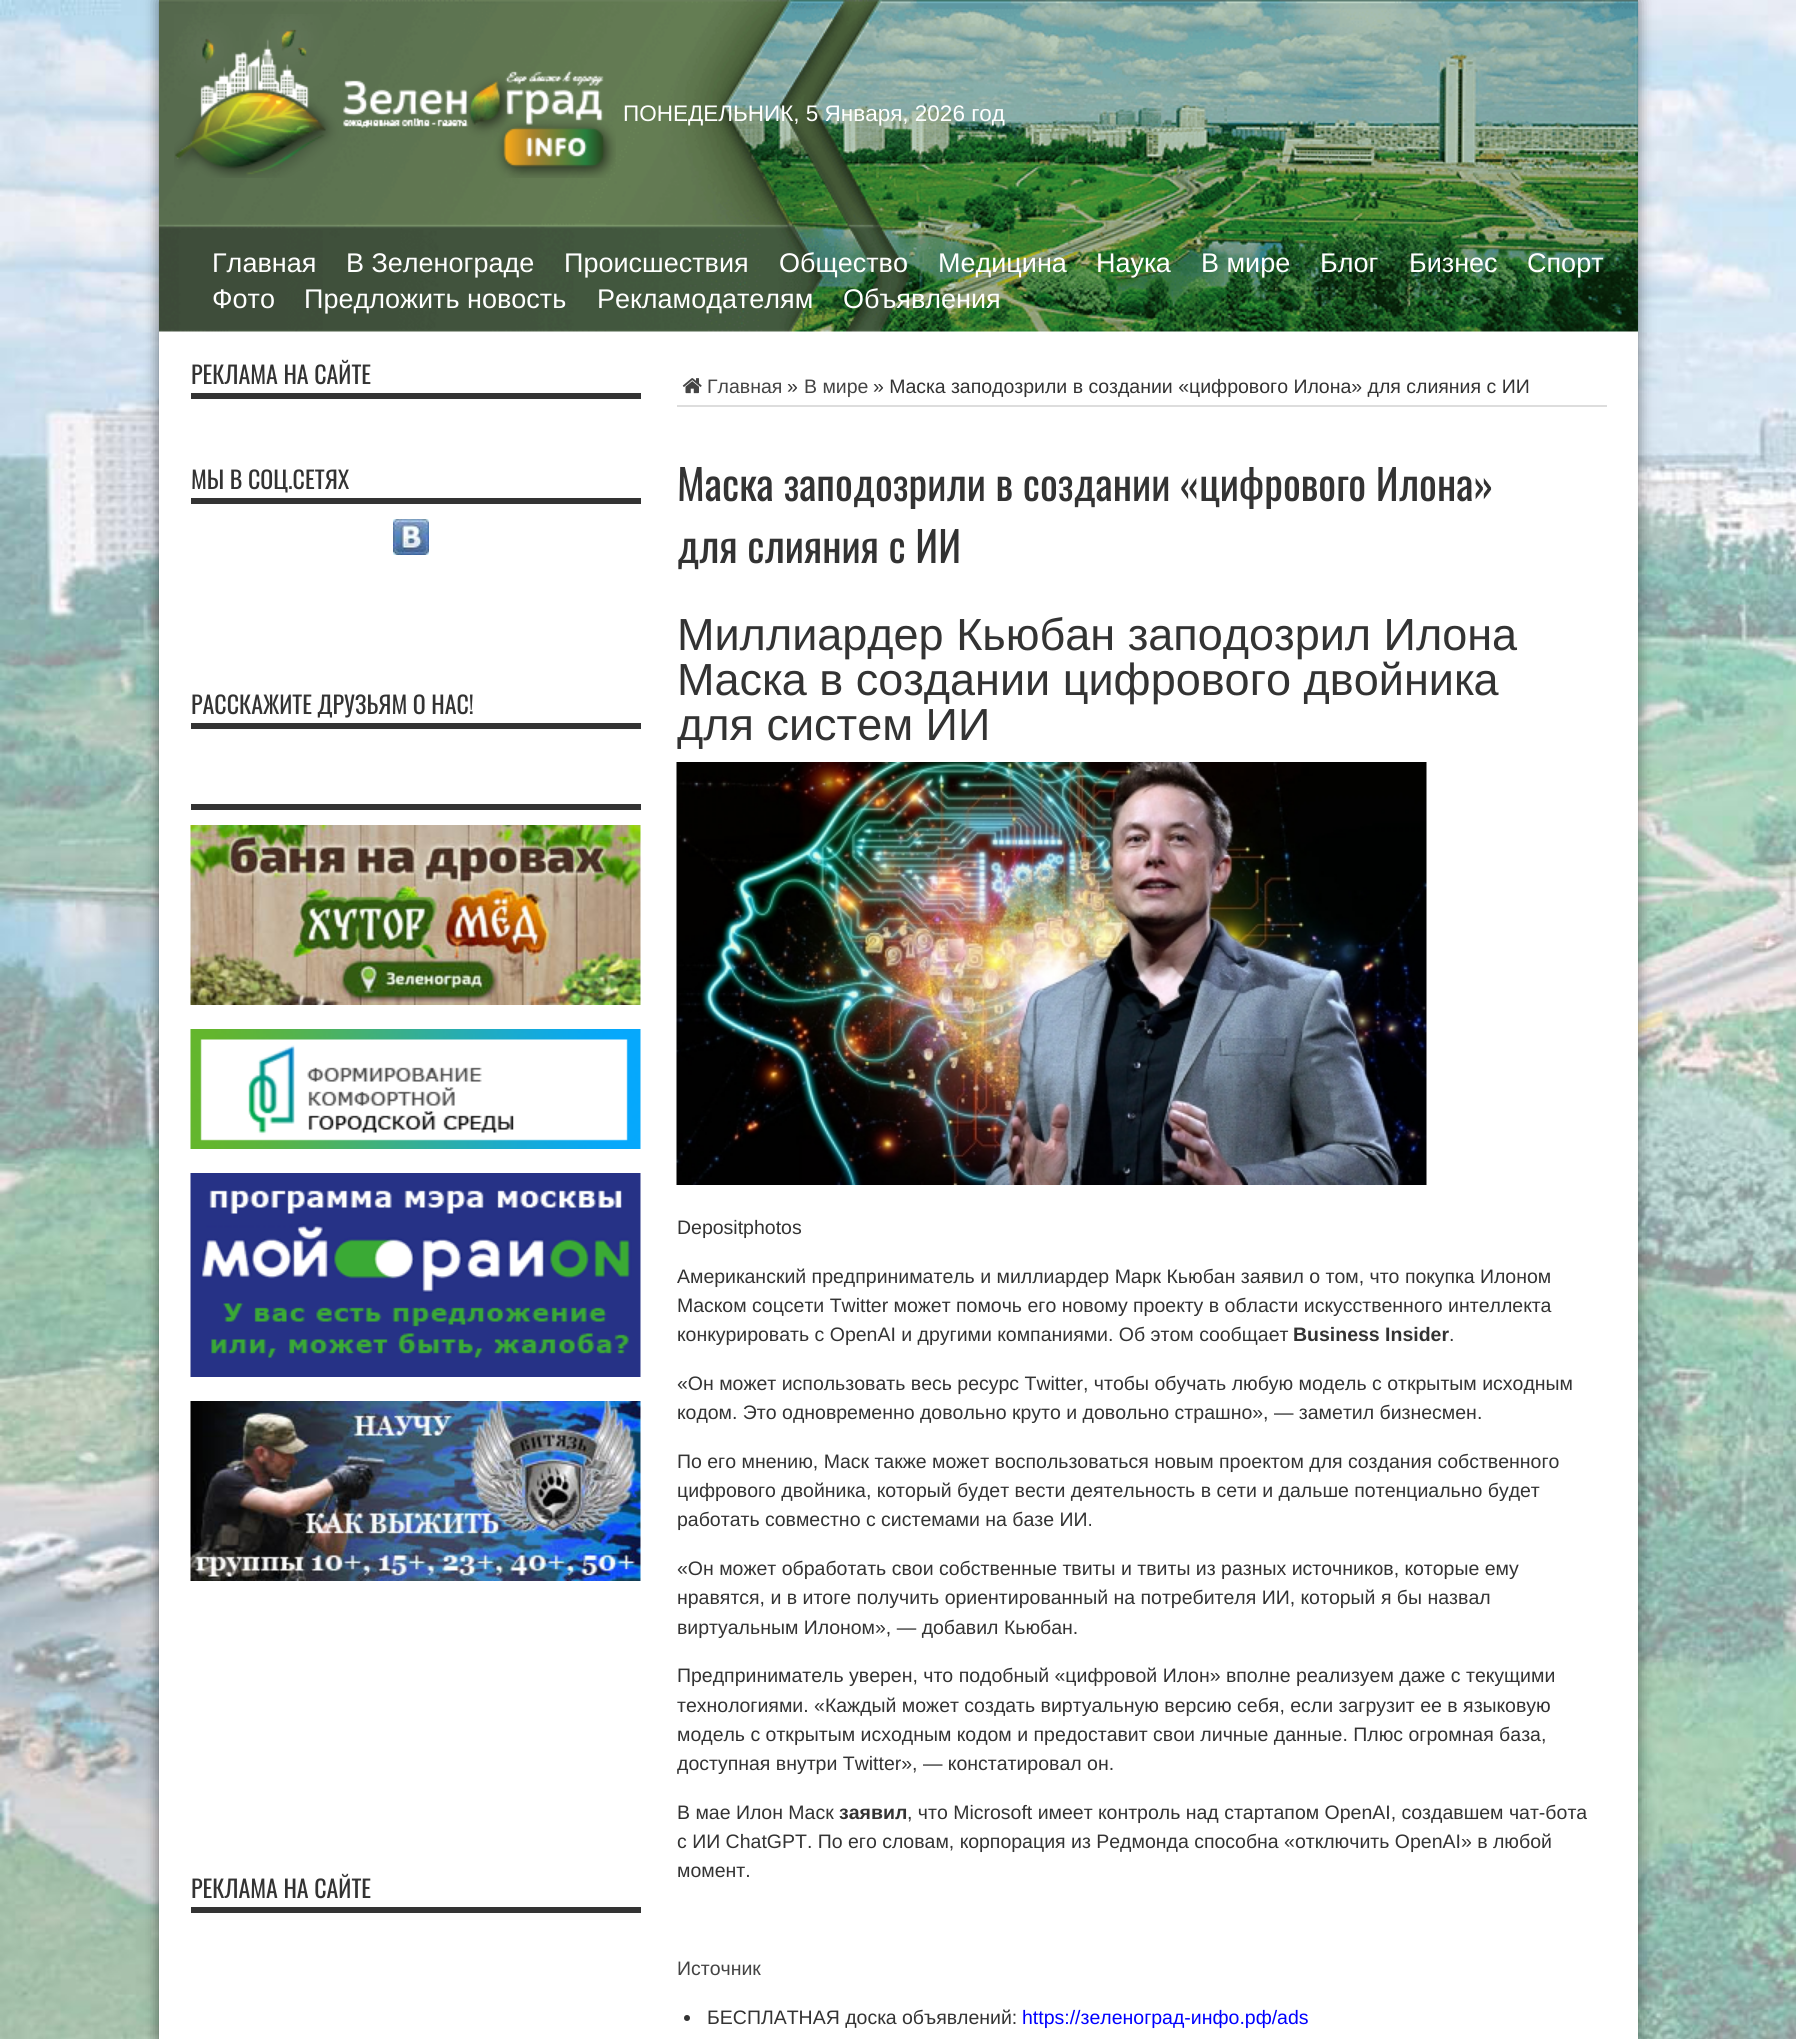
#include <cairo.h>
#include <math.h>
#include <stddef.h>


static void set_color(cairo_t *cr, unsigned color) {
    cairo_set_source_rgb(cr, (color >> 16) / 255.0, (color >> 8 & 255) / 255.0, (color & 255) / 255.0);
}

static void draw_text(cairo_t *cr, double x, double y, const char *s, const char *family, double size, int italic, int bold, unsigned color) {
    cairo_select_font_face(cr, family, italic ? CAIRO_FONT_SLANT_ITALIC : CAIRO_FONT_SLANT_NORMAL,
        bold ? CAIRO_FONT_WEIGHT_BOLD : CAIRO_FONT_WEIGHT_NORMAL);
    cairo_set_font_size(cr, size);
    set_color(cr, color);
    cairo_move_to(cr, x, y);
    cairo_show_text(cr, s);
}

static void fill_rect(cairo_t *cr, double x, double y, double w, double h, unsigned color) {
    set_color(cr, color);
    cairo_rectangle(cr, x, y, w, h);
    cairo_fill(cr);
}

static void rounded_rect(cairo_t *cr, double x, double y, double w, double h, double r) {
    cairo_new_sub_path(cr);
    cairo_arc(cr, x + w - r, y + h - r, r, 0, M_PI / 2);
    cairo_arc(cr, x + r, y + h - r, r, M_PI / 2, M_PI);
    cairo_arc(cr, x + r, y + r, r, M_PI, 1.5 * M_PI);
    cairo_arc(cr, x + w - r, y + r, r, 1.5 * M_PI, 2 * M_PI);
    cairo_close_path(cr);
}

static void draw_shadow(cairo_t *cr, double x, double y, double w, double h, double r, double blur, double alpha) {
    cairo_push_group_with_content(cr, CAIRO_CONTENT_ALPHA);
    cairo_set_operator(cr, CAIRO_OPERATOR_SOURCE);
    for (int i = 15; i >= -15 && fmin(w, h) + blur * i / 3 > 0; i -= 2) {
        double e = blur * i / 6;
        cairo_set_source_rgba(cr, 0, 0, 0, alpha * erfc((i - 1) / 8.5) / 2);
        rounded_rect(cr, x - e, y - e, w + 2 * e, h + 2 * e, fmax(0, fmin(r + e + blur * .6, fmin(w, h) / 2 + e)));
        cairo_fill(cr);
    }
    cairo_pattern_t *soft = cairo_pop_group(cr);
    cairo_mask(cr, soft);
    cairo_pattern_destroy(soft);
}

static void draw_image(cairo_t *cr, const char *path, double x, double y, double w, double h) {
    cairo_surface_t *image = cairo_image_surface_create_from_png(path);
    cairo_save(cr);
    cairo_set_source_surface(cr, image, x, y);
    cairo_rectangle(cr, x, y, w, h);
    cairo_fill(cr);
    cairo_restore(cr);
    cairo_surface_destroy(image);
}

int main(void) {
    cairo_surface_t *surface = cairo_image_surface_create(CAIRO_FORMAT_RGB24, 1796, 2039);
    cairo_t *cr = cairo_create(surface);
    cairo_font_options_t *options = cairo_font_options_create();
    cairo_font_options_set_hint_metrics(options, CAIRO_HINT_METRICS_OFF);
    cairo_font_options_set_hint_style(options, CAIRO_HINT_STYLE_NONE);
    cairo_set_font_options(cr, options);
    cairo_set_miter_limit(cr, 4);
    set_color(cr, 0xFFFFFF);
    cairo_paint(cr);
    draw_image(cr, "assets/img1.png", 0, 0, 1796, 2039);
    set_color(cr, 0x000000);
    draw_shadow(cr, 159, 0, 1479, 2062, 0, 7.5, 0.5);
    fill_rect(cr, 159, 0, 1479, 2039, 0xFFFFFF);
    draw_image(cr, "assets/img2.png", 159, 0, 1479, 332);
    draw_image(cr, "assets/img3.png", 174, 14, 442, 164);
    draw_text(cr, 623, 121, "ПОНЕДЕЛЬНИК, 5 Января, 2026 год", "Liberation Sans", 22.5, 0, 0, 0xFFFFFF);
    draw_text(cr, 212, 272, "Главная", "Liberation Sans", 27, 0, 0, 0xFFFFFF);
    draw_text(cr, 346, 272, "В Зеленограде", "Liberation Sans", 27, 0, 0, 0xFFFFFF);
    draw_text(cr, 564, 272, "Происшествия", "Liberation Sans", 27, 0, 0, 0xFFFFFF);
    draw_text(cr, 779, 272, "Общество", "Liberation Sans", 27, 0, 0, 0xFFFFFF);
    draw_text(cr, 938, 272, "Медицина", "Liberation Sans", 27, 0, 0, 0xFFFFFF);
    draw_text(cr, 1096, 272, "Наука", "Liberation Sans", 27, 0, 0, 0xFFFFFF);
    draw_text(cr, 1201, 272, "В мире", "Liberation Sans", 27, 0, 0, 0xFFFFFF);
    draw_text(cr, 1320, 272, "Блог", "Liberation Sans", 27, 0, 0, 0xFFFFFF);
    draw_text(cr, 1409, 272, "Бизнес", "Liberation Sans", 27, 0, 0, 0xFFFFFF);
    draw_text(cr, 1527, 272, "Спорт", "Liberation Sans", 27, 0, 0, 0xFFFFFF);
    draw_text(cr, 212, 308, "Фото", "Liberation Sans", 27, 0, 0, 0xFFFFFF);
    draw_text(cr, 304, 308, "Предложить новость", "Liberation Sans", 27, 0, 0, 0xFFFFFF);
    draw_text(cr, 597, 308, "Рекламодателям", "Liberation Sans", 27, 0, 0, 0xFFFFFF);
    draw_text(cr, 843, 308, "Объявления", "Liberation Sans", 27, 0, 0, 0xFFFFFF);
    fill_rect(cr, 191, 393, 450, 6, 0x333333);
    draw_text(cr, 191, 384, "РЕКЛАМА НА САЙТЕ", "Oswald", 24, 0, 0, 0x333333);
    fill_rect(cr, 191, 498, 450, 6, 0x333333);
    draw_text(cr, 191, 489, "МЫ В СОЦ.СЕТЯХ", "Oswald", 24, 0, 0, 0x333333);
    draw_image(cr, "assets/img4.png", 393, 519, 36, 36);
    fill_rect(cr, 191, 723, 450, 6, 0x333333);
    draw_text(cr, 191, 714, "РАССКАЖИТЕ ДРУЗЬЯМ О НАС!", "Oswald", 24, 0, 0, 0x333333);
    fill_rect(cr, 191, 804, 450, 6, 0x333333);
    draw_image(cr, "assets/img5.png", 190, 825, 451, 180);
    draw_image(cr, "assets/img6.png", 190, 1029, 451, 120);
    draw_image(cr, "assets/img7.png", 190, 1173, 451, 204);
    draw_image(cr, "assets/img8.png", 190, 1401, 451, 180);
    fill_rect(cr, 191, 1907, 450, 6, 0x333333);
    draw_text(cr, 191, 1898, "РЕКЛАМА НА САЙТЕ", "Oswald", 24, 0, 0, 0x333333);
    fill_rect(cr, 677, 405, 930, 2, 0xDDDDDD);
    draw_image(cr, "assets/img9.png", 682, 378, 20, 16);
    draw_text(cr, 707, 393, "Главная", "Liberation Sans", 19.5, 0, 0, 0x444444);
    draw_text(cr, 787, 393, "»", "Liberation Sans", 19.5, 0, 0, 0x333333);
    draw_text(cr, 804, 393, "В мире", "Liberation Sans", 19.5, 0, 0, 0x444444);
    draw_text(cr, 873, 393, "» Маска заподозрили в создании «цифрового Илона» для слияния с ИИ", "Liberation Sans", 19.5, 0, 0, 0x333333);
    draw_text(cr, 677, 501, "Маска заподозрили в создании «цифрового Илона»", "Oswald", 42, 0, 0, 0x333333);
    draw_text(cr, 677, 563, "для слияния с ИИ", "Oswald", 42, 0, 0, 0x333333);
    draw_text(cr, 677, 650, "Миллиардер Кьюбан заподозрил Илона", "Liberation Sans", 45, 0, 0, 0x333333);
    draw_text(cr, 677, 695, "Маска в создании цифрового двойника", "Liberation Sans", 45, 0, 0, 0x333333);
    draw_text(cr, 677, 740, "для систем ИИ", "Liberation Sans", 45, 0, 0, 0x333333);
    draw_image(cr, "assets/img10.png", 676, 762, 751, 423);
    draw_text(cr, 677, 1234, "Depositphotos", "Liberation Sans", 19.5, 0, 0, 0x333333);
    draw_text(cr, 677, 1283, "Американский предприниматель и миллиардер Марк Кьюбан заявил о том, что покупка Илоном", "Liberation Sans", 19.5, 0, 0, 0x333333);
    draw_text(cr, 677, 1312, "Маском соцсети Twitter может помочь его новому проекту в области искусственного интеллекта", "Liberation Sans", 19.5, 0, 0, 0x333333);
    draw_text(cr, 677, 1341, "конкурировать с OpenAI и другими компаниями. Об этом сообщает", "Liberation Sans", 19.5, 0, 0, 0x333333);
    draw_text(cr, 1293, 1341, "Business Insider", "Liberation Sans", 19.5, 0, 1, 0x333333);
    draw_text(cr, 1449, 1341, ".", "Liberation Sans", 19.5, 0, 0, 0x333333);
    draw_text(cr, 677, 1390, "«Он может использовать весь ресурс Twitter, чтобы обучать любую модель с открытым исходным", "Liberation Sans", 19.5, 0, 0, 0x333333);
    draw_text(cr, 677, 1419, "кодом. Это одновременно довольно круто и довольно страшно», — заметил бизнесмен.", "Liberation Sans", 19.5, 0, 0, 0x333333);
    draw_text(cr, 677, 1468, "По его мнению, Маск также может воспользоваться новым проектом для создания собственного", "Liberation Sans", 19.5, 0, 0, 0x333333);
    draw_text(cr, 677, 1497, "цифрового двойника, который будет вести деятельность в сети и дальше потенциально будет", "Liberation Sans", 19.5, 0, 0, 0x333333);
    draw_text(cr, 677, 1526, "работать совместно с системами на базе ИИ.", "Liberation Sans", 19.5, 0, 0, 0x333333);
    draw_text(cr, 677, 1575, "«Он может обработать свои собственные твиты и твиты из разных источников, которые ему", "Liberation Sans", 19.5, 0, 0, 0x333333);
    draw_text(cr, 677, 1604, "нравятся, и в итоге получить ориентированный на потребителя ИИ, который я бы назвал", "Liberation Sans", 19.5, 0, 0, 0x333333);
    draw_text(cr, 677, 1634, "виртуальным Илоном», — добавил Кьюбан.", "Liberation Sans", 19.5, 0, 0, 0x333333);
    draw_text(cr, 677, 1682, "Предприниматель уверен, что подобный «цифровой Илон» вполне реализуем даже с текущими", "Liberation Sans", 19.5, 0, 0, 0x333333);
    draw_text(cr, 677, 1712, "технологиями. «Каждый может создать виртуальную версию себя, если загрузит ее в языковую", "Liberation Sans", 19.5, 0, 0, 0x333333);
    draw_text(cr, 677, 1741, "модель с открытым исходным кодом и предоставит свои личные данные. Плюс огромная база,", "Liberation Sans", 19.5, 0, 0, 0x333333);
    draw_text(cr, 677, 1770, "доступная внутри Twitter», — констатировал он.", "Liberation Sans", 19.5, 0, 0, 0x333333);
    draw_text(cr, 677, 1819, "В мае Илон Маск", "Liberation Sans", 19.5, 0, 0, 0x333333);
    draw_text(cr, 839, 1819, "заявил", "Liberation Sans", 19.5, 0, 1, 0x333333);
    draw_text(cr, 907, 1819, ", что Microsoft имеет контроль над стартапом OpenAI, создавшем чат-бота", "Liberation Sans", 19.5, 0, 0, 0x333333);
    draw_text(cr, 677, 1848, "с ИИ ChatGPT. По его словам, корпорация из Редмонда способна «отключить OpenAI» в любой", "Liberation Sans", 19.5, 0, 0, 0x333333);
    draw_text(cr, 677, 1877, "момент.", "Liberation Sans", 19.5, 0, 0, 0x333333);
    draw_text(cr, 677, 1975, "Источник", "Liberation Sans", 19.5, 0, 0, 0x444444);
    set_color(cr, 0x333333);
    cairo_new_path(cr);
    cairo_arc(cr, 687, 2018, 3, 0, 2 * M_PI);
    cairo_fill(cr);
    draw_text(cr, 707, 2024, "БЕCПЛАТНАЯ доска объявлений:", "Liberation Sans", 19.5, 0, 0, 0x333333);
    draw_text(cr, 1022, 2024, "https://зеленоград-инфо.рф/ads", "Liberation Sans", 19.5, 0, 0, 0x0000FF);
    cairo_surface_write_to_png(surface, "output.png");
    cairo_font_options_destroy(options);
    cairo_destroy(cr);
    cairo_surface_destroy(surface);
    return 0;
}
